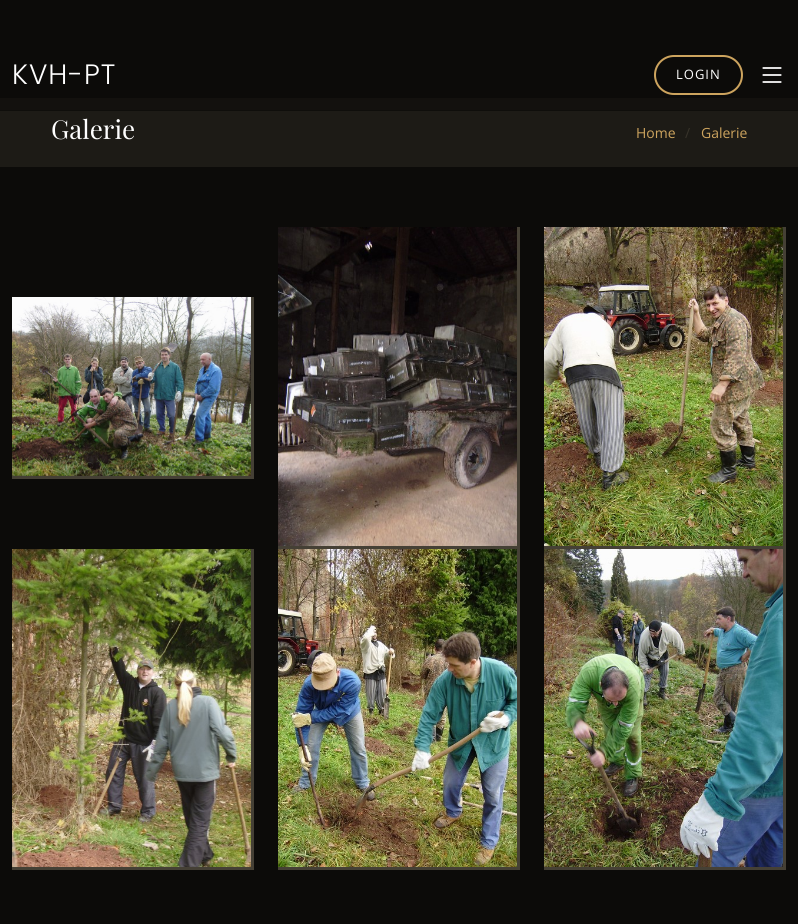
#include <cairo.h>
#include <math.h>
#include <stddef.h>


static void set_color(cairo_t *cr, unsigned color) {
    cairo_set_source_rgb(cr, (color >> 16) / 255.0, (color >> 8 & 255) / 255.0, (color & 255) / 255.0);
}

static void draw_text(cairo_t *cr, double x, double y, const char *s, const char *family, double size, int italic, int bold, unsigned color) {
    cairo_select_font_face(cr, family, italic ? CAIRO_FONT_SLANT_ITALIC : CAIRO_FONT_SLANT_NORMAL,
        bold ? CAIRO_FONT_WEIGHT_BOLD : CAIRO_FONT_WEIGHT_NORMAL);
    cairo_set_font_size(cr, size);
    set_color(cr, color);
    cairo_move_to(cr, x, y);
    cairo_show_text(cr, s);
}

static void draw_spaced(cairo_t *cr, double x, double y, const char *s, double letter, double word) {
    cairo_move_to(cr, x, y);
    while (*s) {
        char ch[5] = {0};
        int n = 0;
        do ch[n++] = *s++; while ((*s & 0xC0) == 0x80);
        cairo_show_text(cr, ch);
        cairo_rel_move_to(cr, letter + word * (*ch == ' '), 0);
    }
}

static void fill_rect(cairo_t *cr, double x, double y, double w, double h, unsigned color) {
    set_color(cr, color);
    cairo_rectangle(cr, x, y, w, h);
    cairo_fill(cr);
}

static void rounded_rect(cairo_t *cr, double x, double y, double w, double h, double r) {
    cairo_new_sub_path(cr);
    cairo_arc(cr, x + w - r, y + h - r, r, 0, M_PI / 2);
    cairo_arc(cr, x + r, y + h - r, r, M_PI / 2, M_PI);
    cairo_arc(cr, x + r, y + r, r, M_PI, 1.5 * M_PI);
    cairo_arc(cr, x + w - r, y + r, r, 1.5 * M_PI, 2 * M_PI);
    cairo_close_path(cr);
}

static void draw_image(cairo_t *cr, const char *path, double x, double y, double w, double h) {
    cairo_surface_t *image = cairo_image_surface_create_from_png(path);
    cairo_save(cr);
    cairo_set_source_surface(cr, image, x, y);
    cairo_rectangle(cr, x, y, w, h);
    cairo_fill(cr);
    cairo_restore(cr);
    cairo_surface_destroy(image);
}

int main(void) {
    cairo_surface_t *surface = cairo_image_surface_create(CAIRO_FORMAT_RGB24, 798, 924);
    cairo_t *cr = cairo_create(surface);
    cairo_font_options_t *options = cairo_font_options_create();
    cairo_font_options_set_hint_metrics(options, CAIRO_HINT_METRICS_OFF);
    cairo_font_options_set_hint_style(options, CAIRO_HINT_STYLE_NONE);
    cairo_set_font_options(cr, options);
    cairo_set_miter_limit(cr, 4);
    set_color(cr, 0x0C0B09);
    cairo_paint(cr);
    fill_rect(cr, 0, 110, 798, 1, 0x0F0E0B);
    cairo_select_font_face(cr, "Poppins Light", CAIRO_FONT_SLANT_NORMAL, CAIRO_FONT_WEIGHT_NORMAL);
    cairo_set_font_size(cr, 28);
    set_color(cr, 0xFFFFFF);
    draw_spaced(cr, 12, 84, "KVH-PT", 1, 0);
    rounded_rect(cr, 655, 56, 87, 38, 19);
    set_color(cr, 0xCDA45E);
    cairo_stroke(cr);
    cairo_select_font_face(cr, "Open Sans", CAIRO_FONT_SLANT_NORMAL, CAIRO_FONT_WEIGHT_NORMAL);
    cairo_set_font_size(cr, 13);
    set_color(cr, 0xFFFFFF);
    draw_spaced(cr, 676, 79, "LOGIN", 1, 0);
    draw_image(cr, "assets/img1.png", 762, 67, 20, 16);
    fill_rect(cr, 0, 111, 798, 56, 0x1D1B16);
    fill_rect(cr, 0, 98, 798, 12, 0x13110E);
    draw_text(cr, 51, 139, "Galerie", "Playfair Display", 26, 0, 0, 0xFFFFFF);
    draw_text(cr, 636, 138, "Home", "Open Sans", 14, 0, 0, 0xCDA45E);
    draw_text(cr, 685, 138, "/", "Open Sans", 14, 0, 0, 0x37332A);
    draw_text(cr, 701, 138, "Galerie", "Open Sans", 14, 0, 0, 0xCDA45E);
    fill_rect(cr, 251, 297, 3, 182, 0x454035);
    fill_rect(cr, 12, 476, 242, 3, 0x454035);
    draw_image(cr, "assets/img2.png", 12, 297, 239, 179);
    fill_rect(cr, 517, 227, 3, 643, 0x454035);
    fill_rect(cr, 278, 546, 242, 3, 0x454035);
    draw_image(cr, "assets/img3.png", 278, 227, 239, 319);
    fill_rect(cr, 783, 227, 3, 643, 0x454035);
    fill_rect(cr, 544, 546, 242, 3, 0x454035);
    draw_image(cr, "assets/img4.png", 544, 227, 239, 319);
    fill_rect(cr, 251, 549, 3, 321, 0x454035);
    fill_rect(cr, 12, 867, 242, 3, 0x454035);
    draw_image(cr, "assets/img5.png", 12, 549, 239, 318);
    fill_rect(cr, 278, 867, 242, 3, 0x454035);
    draw_image(cr, "assets/img6.png", 278, 549, 239, 318);
    fill_rect(cr, 544, 867, 242, 3, 0x454035);
    draw_image(cr, "assets/img7.png", 544, 549, 239, 318);
    cairo_surface_write_to_png(surface, "output.png");
    cairo_font_options_destroy(options);
    cairo_destroy(cr);
    cairo_surface_destroy(surface);
    return 0;
}
